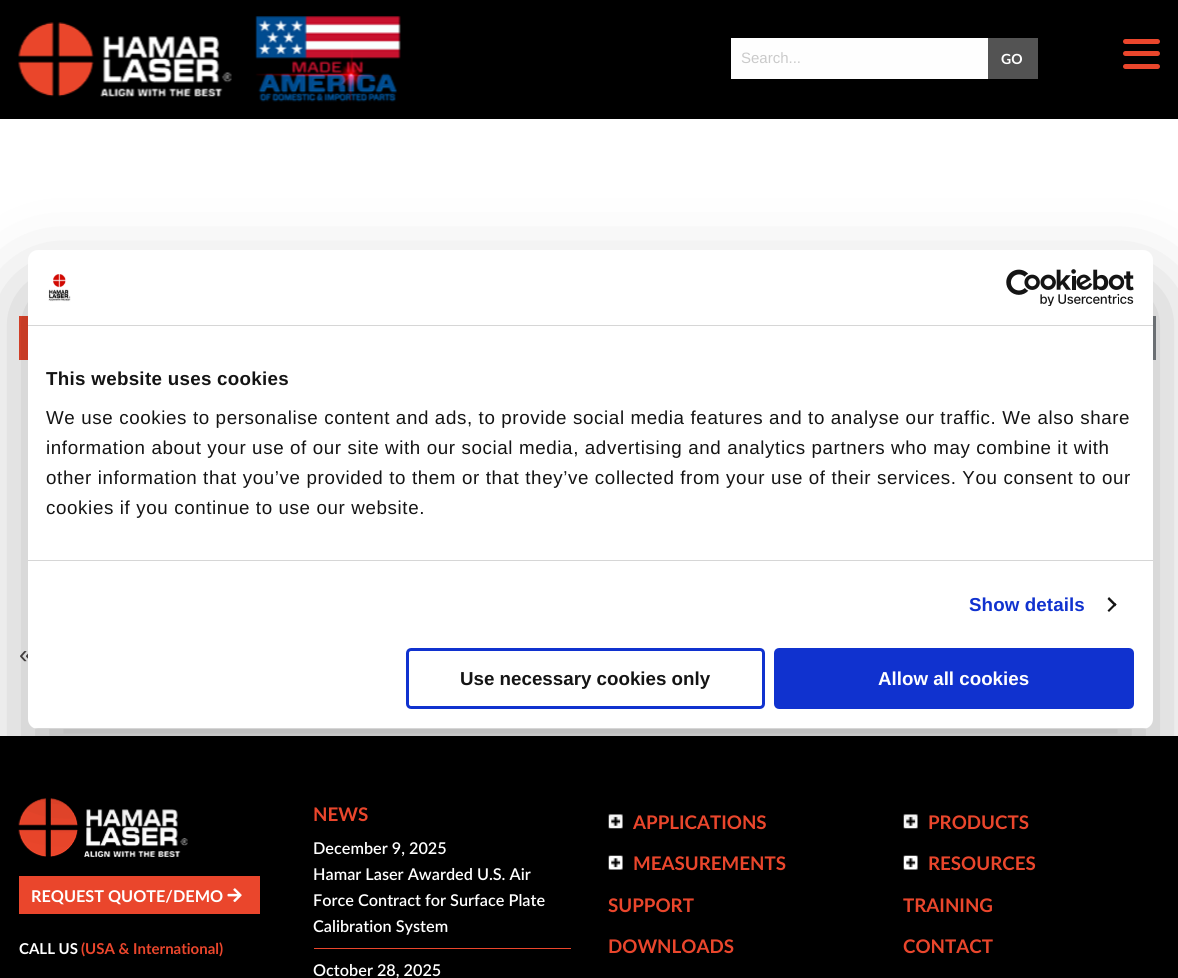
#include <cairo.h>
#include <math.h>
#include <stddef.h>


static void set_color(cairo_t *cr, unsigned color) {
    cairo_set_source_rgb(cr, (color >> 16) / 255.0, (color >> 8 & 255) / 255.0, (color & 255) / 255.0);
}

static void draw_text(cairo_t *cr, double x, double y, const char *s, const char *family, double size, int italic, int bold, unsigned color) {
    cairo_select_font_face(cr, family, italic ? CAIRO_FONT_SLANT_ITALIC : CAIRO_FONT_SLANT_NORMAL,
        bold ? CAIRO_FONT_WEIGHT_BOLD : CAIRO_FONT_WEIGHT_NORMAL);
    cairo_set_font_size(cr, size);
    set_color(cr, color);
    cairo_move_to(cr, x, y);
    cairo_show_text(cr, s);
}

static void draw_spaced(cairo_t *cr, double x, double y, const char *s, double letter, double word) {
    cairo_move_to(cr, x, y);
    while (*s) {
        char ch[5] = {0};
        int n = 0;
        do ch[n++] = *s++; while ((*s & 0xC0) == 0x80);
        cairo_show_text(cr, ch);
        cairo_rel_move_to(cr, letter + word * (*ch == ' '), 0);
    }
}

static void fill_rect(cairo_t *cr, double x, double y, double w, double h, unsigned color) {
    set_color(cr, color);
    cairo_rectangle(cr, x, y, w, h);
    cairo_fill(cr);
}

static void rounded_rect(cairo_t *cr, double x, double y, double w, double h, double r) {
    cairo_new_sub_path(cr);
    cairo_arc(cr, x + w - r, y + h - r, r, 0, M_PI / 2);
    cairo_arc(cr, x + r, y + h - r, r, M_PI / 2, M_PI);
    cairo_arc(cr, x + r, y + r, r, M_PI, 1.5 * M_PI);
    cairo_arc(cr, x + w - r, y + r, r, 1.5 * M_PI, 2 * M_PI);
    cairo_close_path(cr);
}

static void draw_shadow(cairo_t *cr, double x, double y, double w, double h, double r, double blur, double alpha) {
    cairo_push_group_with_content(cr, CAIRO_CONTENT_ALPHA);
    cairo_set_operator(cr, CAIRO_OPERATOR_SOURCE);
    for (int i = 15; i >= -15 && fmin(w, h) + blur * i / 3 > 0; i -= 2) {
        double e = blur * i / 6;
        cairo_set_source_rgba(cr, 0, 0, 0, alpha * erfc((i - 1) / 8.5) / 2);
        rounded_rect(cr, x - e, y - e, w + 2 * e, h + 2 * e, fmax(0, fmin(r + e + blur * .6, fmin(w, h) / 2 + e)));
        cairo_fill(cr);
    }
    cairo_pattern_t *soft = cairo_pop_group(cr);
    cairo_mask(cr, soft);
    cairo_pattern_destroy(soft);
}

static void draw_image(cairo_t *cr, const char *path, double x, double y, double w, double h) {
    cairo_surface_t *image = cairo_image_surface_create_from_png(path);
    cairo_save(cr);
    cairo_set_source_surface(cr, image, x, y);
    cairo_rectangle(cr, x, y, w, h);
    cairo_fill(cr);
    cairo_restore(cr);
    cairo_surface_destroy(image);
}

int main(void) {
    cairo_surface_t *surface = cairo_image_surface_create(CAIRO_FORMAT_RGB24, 1178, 978);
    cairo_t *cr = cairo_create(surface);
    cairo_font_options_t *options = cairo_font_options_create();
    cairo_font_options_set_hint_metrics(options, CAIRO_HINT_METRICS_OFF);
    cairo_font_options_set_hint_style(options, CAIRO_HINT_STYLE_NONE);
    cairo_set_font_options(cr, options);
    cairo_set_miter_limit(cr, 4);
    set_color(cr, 0xFFFFFF);
    cairo_paint(cr);
    fill_rect(cr, 0, 0, 1178, 119, 0x000000);
    draw_image(cr, "assets/img1.png", 18, 22, 214, 75);
    draw_image(cr, "assets/img2.png", 255, 16, 146, 86);
    fill_rect(cr, 731, 38, 257, 41, 0xFEFEFE);
    draw_text(cr, 741, 63, "Search...", "Liberation Sans", 15, 0, 0, 0xCACACA);
    fill_rect(cr, 988, 38, 50, 41, 0x535353);
    draw_text(cr, 1001, 64, "GO", "Lato", 14, 0, 1, 0xFFFFFF);
    set_color(cr, 0xEA462C);
    rounded_rect(cr, 1123, 64, 37, 5, 2.5);
    cairo_fill(cr);
    rounded_rect(cr, 1123, 39, 37, 5, 2.5);
    cairo_fill(cr);
    rounded_rect(cr, 1123, 51, 37, 5, 2.5);
    cairo_fill(cr);
    fill_rect(cr, 19, 316, 9, 44, 0xEA462C);
    fill_rect(cr, 1153, 316, 3, 44, 0x7E8387);
    draw_text(cr, 19, 663, "«", "Liberation Sans", 26, 0, 0, 0x4E4949);
    fill_rect(cr, 0, 736, 1178, 242, 0x000000);
    draw_image(cr, "assets/img5.png", 18, 798, 170, 59);
    fill_rect(cr, 19, 876, 241, 38, 0xEA462C);
    draw_image(cr, "assets/img6.png", 227, 888, 15, 14);
    draw_image(cr, "assets/img7.png", 608, 814, 15, 15);
    draw_image(cr, "assets/img8.png", 608, 855, 15, 15);
    draw_image(cr, "assets/img9.png", 903, 814, 15, 15);
    draw_image(cr, "assets/img10.png", 903, 855, 15, 15);
    set_color(cr, 0x000000);
    draw_shadow(cr, 28, 290, 1125, 479, 10, 42.5, 0.3);
    set_color(cr, 0xFFFFFF);
    rounded_rect(cr, 28, 250, 1125, 479, 10);
    cairo_fill(cr);
    fill_rect(cr, 28, 325, 1125, 1, 0xD6D6D6);
    draw_image(cr, "assets/img3.png", 48, 274, 23, 28);
    draw_image(cr, "assets/img4.png", 1006, 269, 128, 37);
    fill_rect(cr, 28, 560, 1125, 1, 0xD6D6D6);
    cairo_select_font_face(cr, "Liberation Sans", CAIRO_FONT_SLANT_NORMAL, CAIRO_FONT_WEIGHT_BOLD);
    cairo_set_font_size(cr, 18.75);
    set_color(cr, 0x141414);
    draw_spaced(cr, 46, 385, "This website uses cookies", 0.3, 0);
    cairo_select_font_face(cr, "Liberation Sans", CAIRO_FONT_SLANT_NORMAL, CAIRO_FONT_WEIGHT_NORMAL);
    draw_spaced(cr, 46, 424, "We use cookies to personalise content and ads, to provide social media features and to analyse our traffic. We also share", 0.62, 0);
    draw_spaced(cr, 46, 454, "information about your use of our site with our social media, advertising and analytics partners who may combine it with", 0.62, 0);
    draw_spaced(cr, 46, 484, "other information that you’ve provided to them or that they’ve collected from your use of their services. You consent to our", 0.62, 0);
    draw_spaced(cr, 46, 514, "cookies if you continue to use our website.", 0.62, 0);
    cairo_select_font_face(cr, "Liberation Sans", CAIRO_FONT_SLANT_NORMAL, CAIRO_FONT_WEIGHT_BOLD);
    set_color(cr, 0x1032CF);
    draw_spaced(cr, 969, 611, "Show details", 0.1, 0);
    set_color(cr, 0x141414);
    cairo_new_path(cr);
    cairo_move_to(cr, 1109, 597);
    cairo_line_to(cr, 1116.5, 604.5);
    cairo_line_to(cr, 1115, 606.5);
    cairo_line_to(cr, 1107.5, 599);
    cairo_close_path(cr);
    cairo_fill(cr);
    cairo_new_path(cr);
    cairo_move_to(cr, 1115, 603);
    cairo_line_to(cr, 1116.5, 604.5);
    cairo_line_to(cr, 1109, 612);
    cairo_line_to(cr, 1107.5, 610.5);
    cairo_close_path(cr);
    cairo_fill(cr);
    cairo_save(cr);
    rounded_rect(cr, 28, 250, 1125, 479, 10);
    cairo_clip(cr);
    fill_rect(cr, 28, 728, 1125, 1, 0xD6D6D6);
    cairo_restore(cr);
    rounded_rect(cr, 407.5, 649.5, 356, 58, 3.5);
    set_color(cr, 0x1032CF);
    cairo_set_line_width(cr, 3);
    cairo_stroke(cr);
    draw_text(cr, 460, 685, "Use necessary cookies only", "Liberation Sans", 18.75, 0, 1, 0x141414);
    set_color(cr, 0x1032CF);
    rounded_rect(cr, 775.5, 649.5, 357, 58, 3.5);
    cairo_fill_preserve(cr);
    cairo_stroke(cr);
    draw_text(cr, 878, 685, "Allow all cookies", "Liberation Sans", 18.75, 0, 1, 0xFFFFFF);
    draw_text(cr, 31, 902, "REQUEST QUOTE/DEMO", "Lato", 16.25, 0, 1, 0xFFFFFF);
    draw_text(cr, 19, 954, "CALL US", "Lato", 15, 0, 1, 0xFFFFFF);
    draw_text(cr, 81, 954, "(USA & International)", "Lato", 15, 0, 1, 0xEA462C);
    draw_text(cr, 313, 821, "NEWS", "Lato", 18.75, 0, 1, 0xEA462C);
    fill_rect(cr, 314, 948, 257, 1, 0xEA462C);
    draw_text(cr, 313, 854, "December 9, 2025", "Lato SemiBold", 16.25, 0, 0, 0xFFFFFF);
    draw_text(cr, 313, 880, "Hamar Laser Awarded U.S. Air", "Lato SemiBold", 16.25, 0, 0, 0xFFFFFF);
    draw_text(cr, 313, 906, "Force Contract for Surface Plate", "Lato SemiBold", 16.25, 0, 0, 0xFFFFFF);
    draw_text(cr, 313, 932, "Calibration System", "Lato SemiBold", 16.25, 0, 0, 0xFFFFFF);
    draw_text(cr, 313, 976, "October 28, 2025", "Lato SemiBold", 16.25, 0, 0, 0xFFFFFF);
    draw_text(cr, 633, 829, "APPLICATIONS", "Lato", 18.75, 0, 1, 0xEA462C);
    draw_text(cr, 633, 870, "MEASUREMENTS", "Lato", 18.75, 0, 1, 0xEA462C);
    draw_text(cr, 608, 912, "SUPPORT", "Lato", 18.75, 0, 1, 0xEA462C);
    draw_text(cr, 608, 953, "DOWNLOADS", "Lato", 18.75, 0, 1, 0xEA462C);
    draw_text(cr, 928, 829, "PRODUCTS", "Lato", 18.75, 0, 1, 0xEA462C);
    draw_text(cr, 928, 870, "RESOURCES", "Lato", 18.75, 0, 1, 0xEA462C);
    draw_text(cr, 903, 912, "TRAINING", "Lato", 18.75, 0, 1, 0xEA462C);
    draw_text(cr, 903, 953, "CONTACT", "Lato", 18.75, 0, 1, 0xEA462C);
    cairo_surface_write_to_png(surface, "output.png");
    cairo_font_options_destroy(options);
    cairo_destroy(cr);
    cairo_surface_destroy(surface);
    return 0;
}
